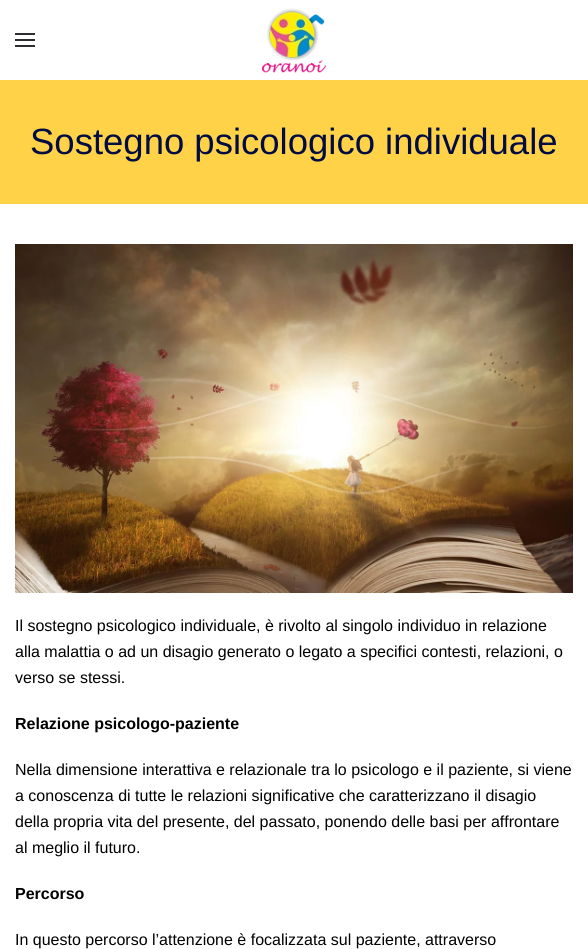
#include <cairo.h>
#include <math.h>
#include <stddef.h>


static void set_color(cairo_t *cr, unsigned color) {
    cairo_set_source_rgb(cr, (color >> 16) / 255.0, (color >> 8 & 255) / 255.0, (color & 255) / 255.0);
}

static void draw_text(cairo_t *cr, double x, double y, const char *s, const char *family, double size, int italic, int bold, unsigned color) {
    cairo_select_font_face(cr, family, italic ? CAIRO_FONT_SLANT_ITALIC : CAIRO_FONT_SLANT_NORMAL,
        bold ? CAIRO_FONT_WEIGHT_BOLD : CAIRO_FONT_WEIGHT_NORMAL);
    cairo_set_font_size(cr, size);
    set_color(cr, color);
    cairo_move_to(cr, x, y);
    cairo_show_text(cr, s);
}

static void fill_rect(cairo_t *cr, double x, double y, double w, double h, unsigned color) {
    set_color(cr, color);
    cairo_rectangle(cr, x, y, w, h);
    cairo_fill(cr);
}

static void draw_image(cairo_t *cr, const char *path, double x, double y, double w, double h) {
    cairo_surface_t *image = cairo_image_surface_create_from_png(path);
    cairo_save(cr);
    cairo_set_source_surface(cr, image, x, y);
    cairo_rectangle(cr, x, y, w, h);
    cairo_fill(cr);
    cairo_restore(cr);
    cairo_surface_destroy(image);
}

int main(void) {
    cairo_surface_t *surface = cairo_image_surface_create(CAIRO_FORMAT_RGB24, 588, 949);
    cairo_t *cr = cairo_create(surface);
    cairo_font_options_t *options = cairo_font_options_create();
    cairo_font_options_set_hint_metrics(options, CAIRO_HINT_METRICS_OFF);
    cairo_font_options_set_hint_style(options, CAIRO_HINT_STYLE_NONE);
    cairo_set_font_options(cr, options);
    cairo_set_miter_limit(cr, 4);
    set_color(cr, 0xFFFFFF);
    cairo_paint(cr);
    fill_rect(cr, 15, 33, 20, 2, 0x2D2E33);
    fill_rect(cr, 15, 39, 20, 2, 0x2D2E33);
    fill_rect(cr, 15, 45, 20, 2, 0x2D2E33);
    draw_image(cr, "assets/img1.png", 262, 8, 64, 65);
    fill_rect(cr, 0, 80, 588, 124, 0xFFD247);
    draw_text(cr, 30, 154, "Sostegno psicologico individuale", "Liberation Sans", 36.5, 0, 0, 0x000C42);
    draw_image(cr, "assets/img2.png", 15, 244, 558, 349);
    draw_text(cr, 15, 631, "Il sostegno psicologico individuale, è rivolto al singolo individuo in relazione", "Liberation Sans", 16, 0, 0, 0x000000);
    draw_text(cr, 15, 657, "alla malattia o ad un disagio generato o legato a specifici contesti, relazioni, o", "Liberation Sans", 16, 0, 0, 0x000000);
    draw_text(cr, 15, 683, "verso se stessi.", "Liberation Sans", 16, 0, 0, 0x000000);
    draw_text(cr, 15, 729, "Relazione psicologo-paziente", "Liberation Sans", 16, 0, 1, 0x000000);
    draw_text(cr, 15, 775, "Nella dimensione interattiva e relazionale tra lo psicologo e il paziente, si viene", "Liberation Sans", 16, 0, 0, 0x000000);
    draw_text(cr, 15, 801, "a conoscenza di tutte le relazioni significative che caratterizzano il disagio", "Liberation Sans", 16, 0, 0, 0x000000);
    draw_text(cr, 15, 827, "della propria vita del presente, del passato, ponendo delle basi per affrontare", "Liberation Sans", 16, 0, 0, 0x000000);
    draw_text(cr, 15, 853, "al meglio il futuro.", "Liberation Sans", 16, 0, 0, 0x000000);
    draw_text(cr, 15, 899, "Percorso", "Liberation Sans", 16, 0, 1, 0x000000);
    draw_text(cr, 15, 945, "In questo percorso l’attenzione è focalizzata sul paziente, attraverso", "Liberation Sans", 16, 0, 0, 0x000000);
    cairo_surface_write_to_png(surface, "output.png");
    cairo_font_options_destroy(options);
    cairo_destroy(cr);
    cairo_surface_destroy(surface);
    return 0;
}
